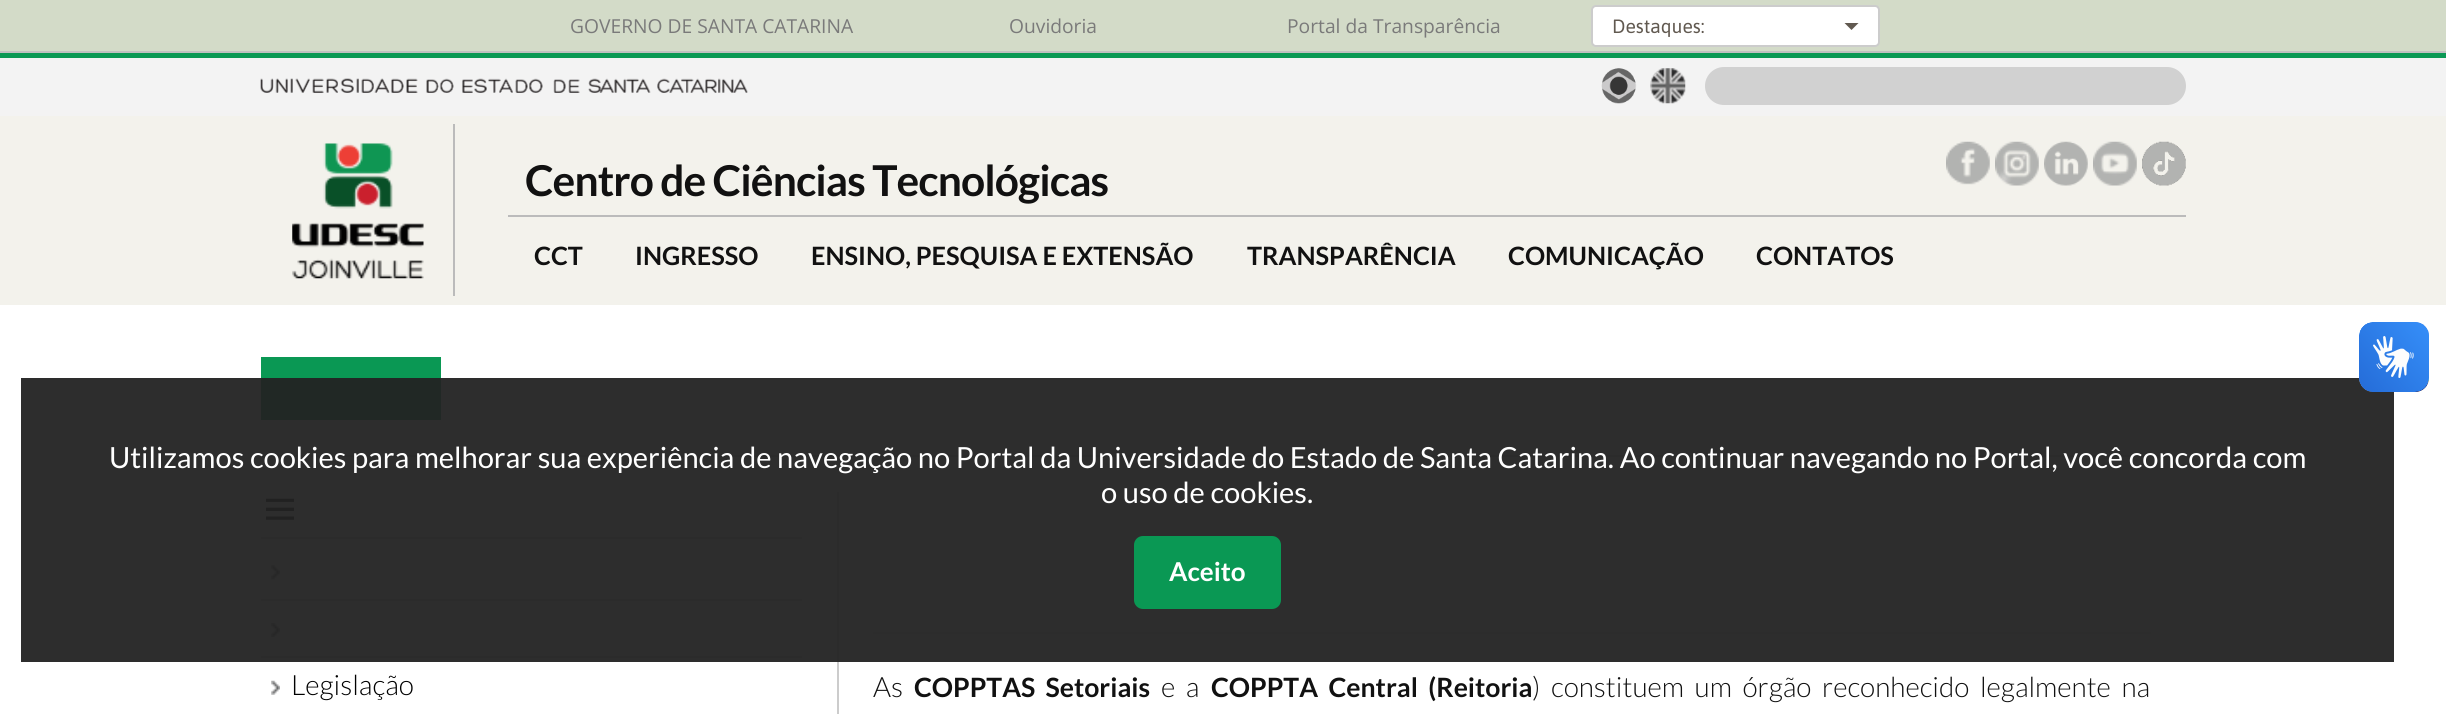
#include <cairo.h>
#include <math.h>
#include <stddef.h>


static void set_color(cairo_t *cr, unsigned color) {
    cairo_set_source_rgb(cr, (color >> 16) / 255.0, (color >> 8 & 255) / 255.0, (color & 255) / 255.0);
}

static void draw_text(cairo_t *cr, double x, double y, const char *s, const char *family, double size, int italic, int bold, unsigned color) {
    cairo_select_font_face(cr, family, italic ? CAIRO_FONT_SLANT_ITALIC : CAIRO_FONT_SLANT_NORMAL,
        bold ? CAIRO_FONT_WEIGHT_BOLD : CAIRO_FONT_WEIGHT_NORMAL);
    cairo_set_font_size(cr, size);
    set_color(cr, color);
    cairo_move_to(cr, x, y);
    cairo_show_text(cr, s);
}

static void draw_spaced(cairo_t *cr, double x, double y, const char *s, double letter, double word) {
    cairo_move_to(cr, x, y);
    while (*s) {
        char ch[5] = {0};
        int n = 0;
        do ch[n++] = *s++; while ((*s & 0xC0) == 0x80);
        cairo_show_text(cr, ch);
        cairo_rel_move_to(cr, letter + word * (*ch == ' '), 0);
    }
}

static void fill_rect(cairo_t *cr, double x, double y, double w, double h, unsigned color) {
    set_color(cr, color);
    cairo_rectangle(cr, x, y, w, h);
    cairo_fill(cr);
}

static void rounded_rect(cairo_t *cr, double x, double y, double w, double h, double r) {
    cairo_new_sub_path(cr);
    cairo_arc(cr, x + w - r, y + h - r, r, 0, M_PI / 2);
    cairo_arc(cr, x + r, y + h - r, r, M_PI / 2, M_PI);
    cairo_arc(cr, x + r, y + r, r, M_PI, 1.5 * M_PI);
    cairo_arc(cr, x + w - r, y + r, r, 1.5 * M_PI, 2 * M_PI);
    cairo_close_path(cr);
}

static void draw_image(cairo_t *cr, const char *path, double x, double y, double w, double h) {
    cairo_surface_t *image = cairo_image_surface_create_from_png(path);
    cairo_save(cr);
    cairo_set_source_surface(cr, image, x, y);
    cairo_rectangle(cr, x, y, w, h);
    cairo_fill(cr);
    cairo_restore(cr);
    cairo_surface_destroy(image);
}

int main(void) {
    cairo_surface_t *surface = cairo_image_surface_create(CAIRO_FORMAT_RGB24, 2446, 714);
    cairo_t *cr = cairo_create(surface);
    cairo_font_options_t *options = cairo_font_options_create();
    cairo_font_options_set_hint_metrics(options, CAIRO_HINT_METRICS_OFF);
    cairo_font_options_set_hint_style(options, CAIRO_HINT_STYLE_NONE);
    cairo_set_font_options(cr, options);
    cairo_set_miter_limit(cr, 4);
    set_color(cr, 0xD3DBC8);
    cairo_paint(cr);
    fill_rect(cr, 0, 51, 2446, 2, 0xC0C0C0);
    draw_text(cr, 570, 33, "GOVERNO DE SANTA CATARINA", "Open Sans", 19.25, 0, 0, 0x7A7A7A);
    draw_text(cr, 1009, 33, "Ouvidoria", "Open Sans", 19.25, 0, 0, 0x7A7A7A);
    draw_text(cr, 1287, 33, "Portal da Transparência", "Open Sans", 19.25, 0, 0, 0x7A7A7A);
    set_color(cr, 0xFFFFFF);
    rounded_rect(cr, 1592, 6, 287, 40, 4);
    cairo_fill_preserve(cr);
    set_color(cr, 0xCCCCCC);
    cairo_stroke(cr);
    draw_text(cr, 1612, 33, "Destaques:", "Asap", 19.25, 0, 0, 0x615950);
    cairo_new_path(cr);
    cairo_move_to(cr, 1844.5, 23);
    cairo_line_to(cr, 1858.5, 23);
    cairo_line_to(cr, 1851.5, 30);
    cairo_close_path(cr);
    cairo_fill(cr);
    fill_rect(cr, 0, 116, 2446, 189, 0xF3F2EC);
    fill_rect(cr, 0, 53, 2446, 5, 0x0A9854);
    fill_rect(cr, 0, 58, 2446, 58, 0xF3F3F3);
    draw_image(cr, "assets/img1.png", 260, 78, 488, 15);
    draw_image(cr, "assets/img2.png", 1601, 68, 36, 36);
    draw_image(cr, "assets/img3.png", 1650, 68, 36, 36);
    set_color(cr, 0xD1D1D1);
    rounded_rect(cr, 1705, 67, 481, 38, 19);
    cairo_fill(cr);
    fill_rect(cr, 453, 124, 2, 172, 0xBBBBBB);
    draw_image(cr, "assets/img4.png", 292, 143, 132, 136);
    cairo_select_font_face(cr, "Lato", CAIRO_FONT_SLANT_NORMAL, CAIRO_FONT_WEIGHT_BOLD);
    cairo_set_font_size(cr, 42.5);
    set_color(cr, 0x111111);
    draw_spaced(cr, 525, 196, "Centro de Ciências Tecnológicas", -0.9, 0);
    draw_image(cr, "assets/img5.png", 1946, 141, 44, 44);
    draw_image(cr, "assets/img6.png", 1995, 141, 44, 45);
    draw_image(cr, "assets/img7.png", 2044, 141, 44, 45);
    draw_image(cr, "assets/img8.png", 2093, 141, 44, 45);
    draw_image(cr, "assets/img9.png", 2142, 141, 44, 45);
    fill_rect(cr, 508, 215, 1678, 2, 0xBBBBBB);
    draw_text(cr, 534, 265, "CCT", "Lato", 25.25, 0, 1, 0x111111);
    draw_text(cr, 635, 265, "INGRESSO", "Lato", 25.25, 0, 1, 0x111111);
    draw_text(cr, 811, 265, "ENSINO, PESQUISA E EXTENSÃO", "Lato", 25.25, 0, 1, 0x111111);
    draw_text(cr, 1247, 265, "TRANSPARÊNCIA", "Lato", 25.25, 0, 1, 0x111111);
    draw_text(cr, 1508, 265, "COMUNICAÇÃO", "Lato", 25.25, 0, 1, 0x111111);
    draw_text(cr, 1756, 265, "CONTATOS", "Lato", 25.25, 0, 1, 0x111111);
    fill_rect(cr, 0, 305, 2446, 409, 0xFFFFFF);
    fill_rect(cr, 261, 357, 180, 63, 0x0A9854);
    fill_rect(cr, 261, 455, 1925, 2, 0xDDDDDD);
    fill_rect(cr, 837, 492, 2, 222, 0xCCCCCC);
    draw_image(cr, "assets/img10.png", 266, 498, 28, 22);
    fill_rect(cr, 261, 537, 541, 2, 0xCCCCCC);
    draw_image(cr, "assets/img11.png", 271, 565, 9, 15);
    fill_rect(cr, 261, 599, 541, 2, 0xCCCCCC);
    draw_image(cr, "assets/img12.png", 271, 623, 9, 14);
    fill_rect(cr, 261, 656, 541, 2, 0xCCCCCC);
    draw_image(cr, "assets/img13.png", 271, 680, 9, 15);
    draw_text(cr, 291, 695, "Legislação", "Lato Light", 26.6, 0, 0, 0x000000);
    fill_rect(cr, 873, 632, 1278, 2, 0xEEEEEE);
    draw_text(cr, 873, 697, "As", "Lato Light", 26.6, 0, 0, 0x111111);
    cairo_select_font_face(cr, "Lato", CAIRO_FONT_SLANT_NORMAL, CAIRO_FONT_WEIGHT_BOLD);
    draw_spaced(cr, 914, 697, "COPPTAS Setoriais", 0, 5);
    cairo_select_font_face(cr, "Lato Light", CAIRO_FONT_SLANT_NORMAL, CAIRO_FONT_WEIGHT_NORMAL);
    draw_spaced(cr, 1161, 697, "e a", 0, 5);
    cairo_select_font_face(cr, "Lato", CAIRO_FONT_SLANT_NORMAL, CAIRO_FONT_WEIGHT_BOLD);
    draw_spaced(cr, 1211, 697, "COPPTA Central (Reitoria", 0, 5.25);
    cairo_select_font_face(cr, "Lato Light", CAIRO_FONT_SLANT_NORMAL, CAIRO_FONT_WEIGHT_NORMAL);
    draw_spaced(cr, 1532, 697, ") constituem um órgão reconhecido legalmente na", 0, 5.25);
    cairo_set_source_rgba(cr, 0.137, 0.137, 0.137, 0.95);
    cairo_rectangle(cr, 21, 378, 2373, 284);
    cairo_fill(cr);
    draw_image(cr, "assets/img14.png", 2359, 322, 70, 70);
    draw_image(cr, "assets/img15.png", 2359, 322, 70, 70);
    draw_text(cr, 109, 468, "Utilizamos cookies para melhorar sua experiência de navegação no Portal da Universidade do Estado de Santa Catarina. Ao continuar navegando no Portal, você concorda com", "Lato", 28, 0, 0, 0xFFFFFF);
    draw_text(cr, 1101, 503, "o uso de cookies.", "Lato", 28, 0, 0, 0xFFFFFF);
    set_color(cr, 0x0A9854);
    rounded_rect(cr, 1134, 536, 147, 73, 9);
    cairo_fill(cr);
    draw_text(cr, 1169, 581, "Aceito", "Lato", 26, 0, 1, 0xFFFFFF);
    cairo_surface_write_to_png(surface, "output.png");
    cairo_font_options_destroy(options);
    cairo_destroy(cr);
    cairo_surface_destroy(surface);
    return 0;
}
